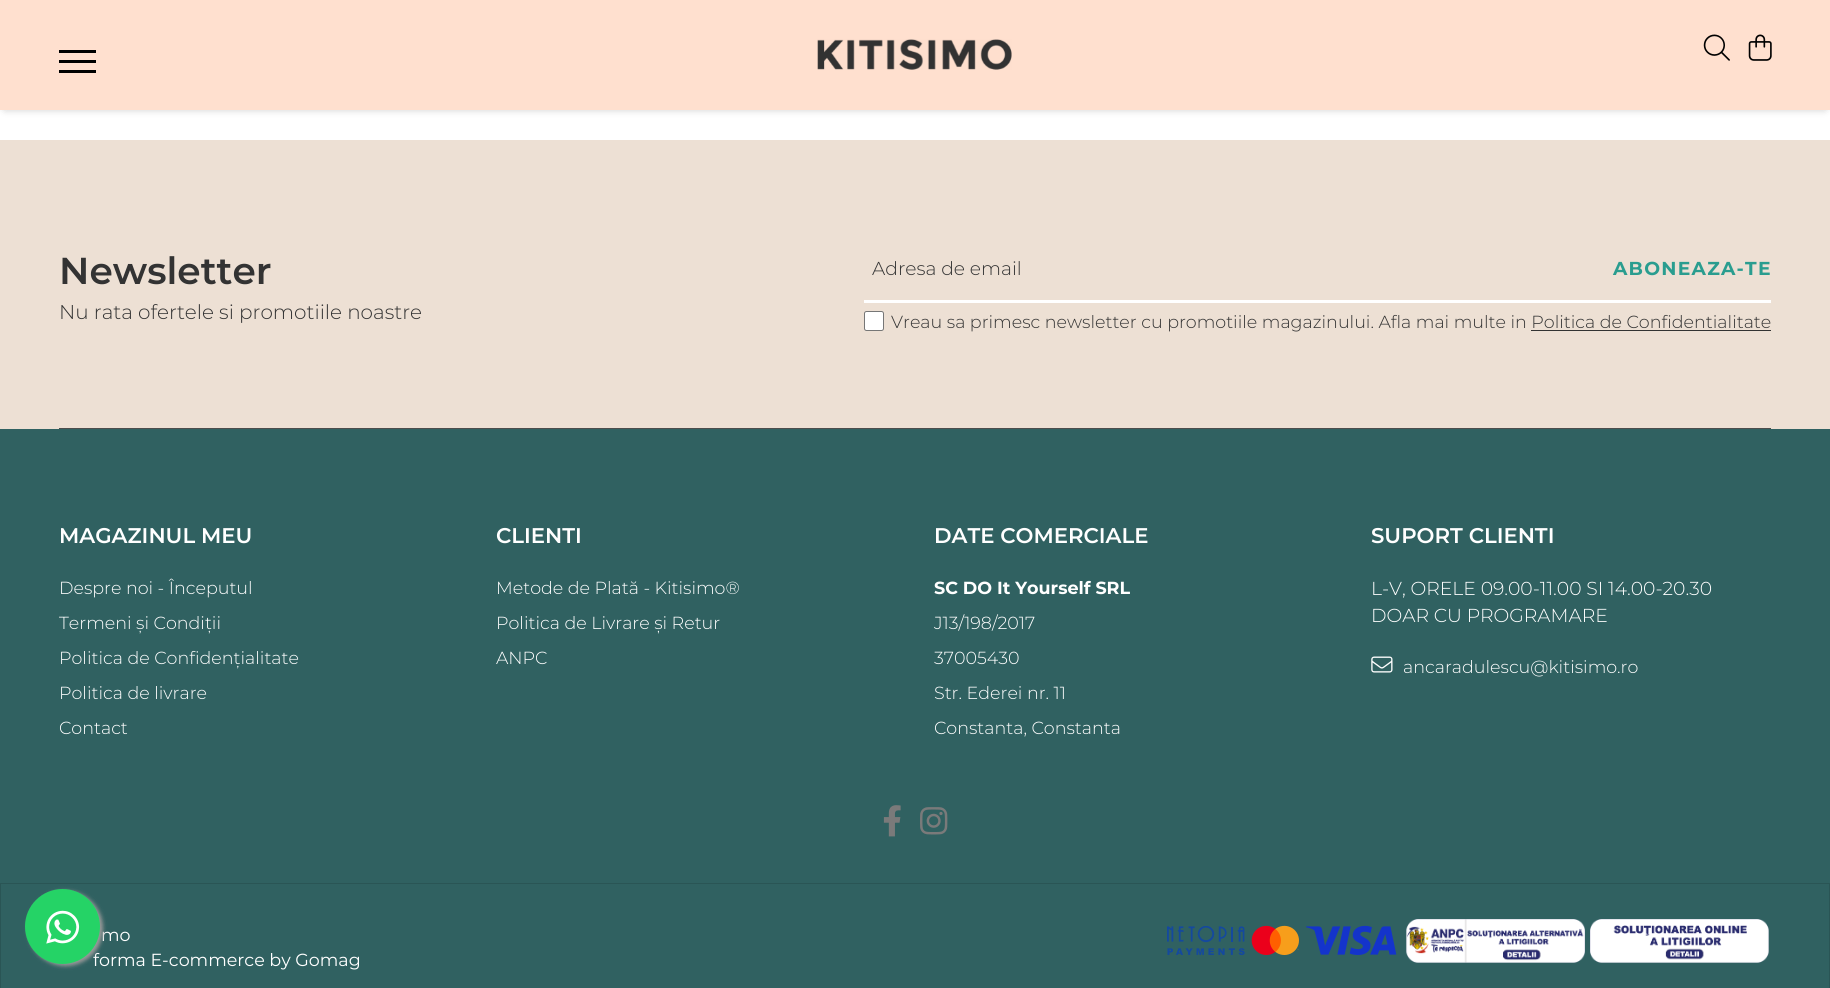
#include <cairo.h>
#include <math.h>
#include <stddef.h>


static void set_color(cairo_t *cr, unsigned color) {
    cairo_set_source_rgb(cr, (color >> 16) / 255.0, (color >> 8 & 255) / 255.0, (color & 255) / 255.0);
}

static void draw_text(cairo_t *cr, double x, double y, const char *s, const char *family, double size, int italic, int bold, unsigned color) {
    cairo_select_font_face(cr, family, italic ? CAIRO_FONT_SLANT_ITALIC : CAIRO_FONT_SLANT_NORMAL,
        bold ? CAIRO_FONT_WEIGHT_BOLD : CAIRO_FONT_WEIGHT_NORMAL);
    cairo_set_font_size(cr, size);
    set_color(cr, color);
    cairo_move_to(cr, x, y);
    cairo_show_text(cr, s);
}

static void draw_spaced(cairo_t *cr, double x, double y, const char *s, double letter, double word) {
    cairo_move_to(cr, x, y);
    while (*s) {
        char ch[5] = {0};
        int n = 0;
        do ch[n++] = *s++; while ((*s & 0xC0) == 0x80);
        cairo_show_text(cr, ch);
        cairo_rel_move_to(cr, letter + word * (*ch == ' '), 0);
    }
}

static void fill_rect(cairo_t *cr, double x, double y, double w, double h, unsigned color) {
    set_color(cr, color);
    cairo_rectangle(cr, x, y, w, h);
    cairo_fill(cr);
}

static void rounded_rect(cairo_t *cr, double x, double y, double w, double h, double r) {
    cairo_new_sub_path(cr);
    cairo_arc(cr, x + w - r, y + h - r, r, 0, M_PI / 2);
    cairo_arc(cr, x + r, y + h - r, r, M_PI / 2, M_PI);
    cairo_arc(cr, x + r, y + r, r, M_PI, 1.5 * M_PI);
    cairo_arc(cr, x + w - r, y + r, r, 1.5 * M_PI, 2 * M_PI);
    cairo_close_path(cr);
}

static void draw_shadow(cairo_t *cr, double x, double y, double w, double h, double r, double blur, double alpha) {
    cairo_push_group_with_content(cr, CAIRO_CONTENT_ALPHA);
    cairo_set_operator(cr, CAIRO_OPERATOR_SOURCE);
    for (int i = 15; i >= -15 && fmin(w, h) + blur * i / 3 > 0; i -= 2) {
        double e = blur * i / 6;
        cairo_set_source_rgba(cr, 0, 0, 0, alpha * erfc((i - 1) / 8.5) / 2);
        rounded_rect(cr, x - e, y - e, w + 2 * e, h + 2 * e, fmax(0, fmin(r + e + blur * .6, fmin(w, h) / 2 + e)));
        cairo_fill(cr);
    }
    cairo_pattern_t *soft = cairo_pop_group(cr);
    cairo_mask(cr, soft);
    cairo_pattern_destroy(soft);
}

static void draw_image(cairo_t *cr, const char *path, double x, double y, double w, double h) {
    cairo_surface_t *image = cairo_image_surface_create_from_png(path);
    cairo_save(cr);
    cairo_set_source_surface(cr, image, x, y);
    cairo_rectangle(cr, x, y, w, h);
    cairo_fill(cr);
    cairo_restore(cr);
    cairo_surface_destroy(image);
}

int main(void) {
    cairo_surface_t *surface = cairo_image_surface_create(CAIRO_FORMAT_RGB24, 1830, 988);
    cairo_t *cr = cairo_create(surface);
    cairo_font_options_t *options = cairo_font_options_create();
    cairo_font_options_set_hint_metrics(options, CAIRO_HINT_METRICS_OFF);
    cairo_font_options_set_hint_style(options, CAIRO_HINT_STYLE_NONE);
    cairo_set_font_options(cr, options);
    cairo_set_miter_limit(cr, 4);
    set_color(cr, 0xFFFFFF);
    cairo_paint(cr);
    set_color(cr, 0x000000);
    draw_shadow(cr, 5, 8, 1820, 100, 0, 4.5, 0.3);
    fill_rect(cr, 0, 0, 1830, 110, 0xFFE0CF);
    fill_rect(cr, 59, 60, 37, 3, 0x000000);
    fill_rect(cr, 59, 50, 37, 3, 0x000000);
    fill_rect(cr, 59, 70, 37, 3, 0x000000);
    draw_image(cr, "assets/img1.png", 817, 39, 195, 31);
    draw_image(cr, "assets/img2.png", 1703, 34, 27, 27);
    draw_image(cr, "assets/img3.png", 1748, 34, 24, 27);
    fill_rect(cr, 0, 140, 1830, 289, 0xEDE0D4);
    fill_rect(cr, 59, 428, 1712, 1, 0x4D4D4C);
    draw_text(cr, 59, 284, "Newsletter", "Montserrat SemiBold", 37.5, 0, 0, 0x333333);
    draw_text(cr, 59, 319, "Nu rata ofertele si promotiile noastre", "Montserrat Light", 20, 0, 0, 0x333333);
    fill_rect(cr, 864, 300, 907, 3, 0xFFFFFF);
    draw_text(cr, 872, 275, "Adresa de email", "Montserrat Light", 18.75, 0, 0, 0x333333);
    cairo_select_font_face(cr, "Montserrat", CAIRO_FONT_SLANT_NORMAL, CAIRO_FONT_WEIGHT_BOLD);
    set_color(cr, 0x2A9D8F);
    draw_spaced(cr, 1613, 275, "ABONEAZA-TE", 1.25, 0);
    set_color(cr, 0xFFFFFF);
    rounded_rect(cr, 864.5, 311.5, 19, 19, 2);
    cairo_fill_preserve(cr);
    set_color(cr, 0x767676);
    cairo_set_line_width(cr, 1);
    cairo_stroke(cr);
    draw_text(cr, 891, 328, "Vreau sa primesc newsletter cu promotiile magazinului. Afla mai multe in Politica de Confidentialitate", "Montserrat Light", 17.5, 0, 0, 0x333333);
    fill_rect(cr, 1531, 330, 240, 1, 0x333333);
    fill_rect(cr, 0, 429, 1830, 559, 0x306161);
    draw_text(cr, 59, 543, "MAGAZINUL MEU", "Montserrat SemiBold", 21.25, 0, 0, 0xFFFFFF);
    draw_text(cr, 59, 594, "Despre noi - Începutul", "Montserrat Light", 17.5, 0, 0, 0xFFFFFF);
    draw_text(cr, 59, 629, "Termeni și Condiții", "Montserrat Light", 17.5, 0, 0, 0xFFFFFF);
    draw_text(cr, 59, 664, "Politica de Confidențialitate", "Montserrat Light", 17.5, 0, 0, 0xFFFFFF);
    draw_text(cr, 59, 699, "Politica de livrare", "Montserrat Light", 17.5, 0, 0, 0xFFFFFF);
    draw_text(cr, 59, 734, "Contact", "Montserrat Light", 17.5, 0, 0, 0xFFFFFF);
    draw_text(cr, 496, 543, "CLIENTI", "Montserrat SemiBold", 21.25, 0, 0, 0xFFFFFF);
    draw_text(cr, 496, 594, "Metode de Plată - Kitisimo®", "Montserrat Light", 17.5, 0, 0, 0xFFFFFF);
    draw_text(cr, 496, 629, "Politica de Livrare și Retur", "Montserrat Light", 17.5, 0, 0, 0xFFFFFF);
    draw_text(cr, 496, 664, "ANPC", "Montserrat Light", 17.5, 0, 0, 0xFFFFFF);
    draw_text(cr, 934, 543, "DATE COMERCIALE", "Montserrat SemiBold", 21.25, 0, 0, 0xFFFFFF);
    draw_text(cr, 934, 594, "SC DO It Yourself SRL", "Montserrat", 17.5, 0, 1, 0xFFFFFF);
    draw_text(cr, 934, 629, "J13/198/2017", "Montserrat Light", 17.5, 0, 0, 0xFFFFFF);
    draw_text(cr, 934, 664, "37005430", "Montserrat Light", 17.5, 0, 0, 0xFFFFFF);
    draw_text(cr, 934, 699, "Str. Ederei nr. 11", "Montserrat Light", 17.5, 0, 0, 0xFFFFFF);
    draw_text(cr, 934, 734, "Constanta, Constanta", "Montserrat Light", 17.5, 0, 0, 0xFFFFFF);
    draw_text(cr, 1371, 543, "SUPORT CLIENTI", "Montserrat SemiBold", 21.25, 0, 0, 0xFFFFFF);
    draw_text(cr, 1371, 595, "L-V, ORELE 09.00-11.00 SI 14.00-20.30", "Montserrat Light", 18.75, 0, 0, 0xFFFFFF);
    draw_text(cr, 1371, 622, "DOAR CU PROGRAMARE", "Montserrat Light", 18.75, 0, 0, 0xFFFFFF);
    draw_image(cr, "assets/img4.png", 1371, 656, 22, 17);
    draw_text(cr, 1403, 673, "ancaradulescu@kitisimo.ro", "Montserrat Light", 17.5, 0, 0, 0xFFFFFF);
    draw_image(cr, "assets/img5.png", 883, 805, 18, 32);
    draw_image(cr, "assets/img6.png", 920, 807, 28, 28);
    cairo_rectangle(cr, 0.5, 883.5, 1829, 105);
    set_color(cr, 0x2A5555);
    cairo_stroke(cr);
    draw_text(cr, 101, 941, "mo", "Montserrat", 17.5, 0, 0, 0xFFFFFF);
    draw_text(cr, 93, 966, "forma E-commerce by Gomag", "Montserrat", 17.5, 0, 0, 0xFFFFFF);
    draw_image(cr, "assets/img7.png", 1167, 925, 230, 30);
    draw_image(cr, "assets/img8.png", 1406, 919, 179, 44);
    draw_image(cr, "assets/img9.png", 1590, 919, 179, 44);
    set_color(cr, 0x999999);
    draw_shadow(cr, 28, 891, 75, 75, 37.5, 2, 1);
    set_color(cr, 0x25D366);
    cairo_arc(cr, 62.5, 926.5, 37.5, 0, 2 * M_PI);
    cairo_fill(cr);
    draw_image(cr, "assets/img10.png", 46, 910, 34, 34);
    cairo_surface_write_to_png(surface, "output.png");
    cairo_font_options_destroy(options);
    cairo_destroy(cr);
    cairo_surface_destroy(surface);
    return 0;
}
